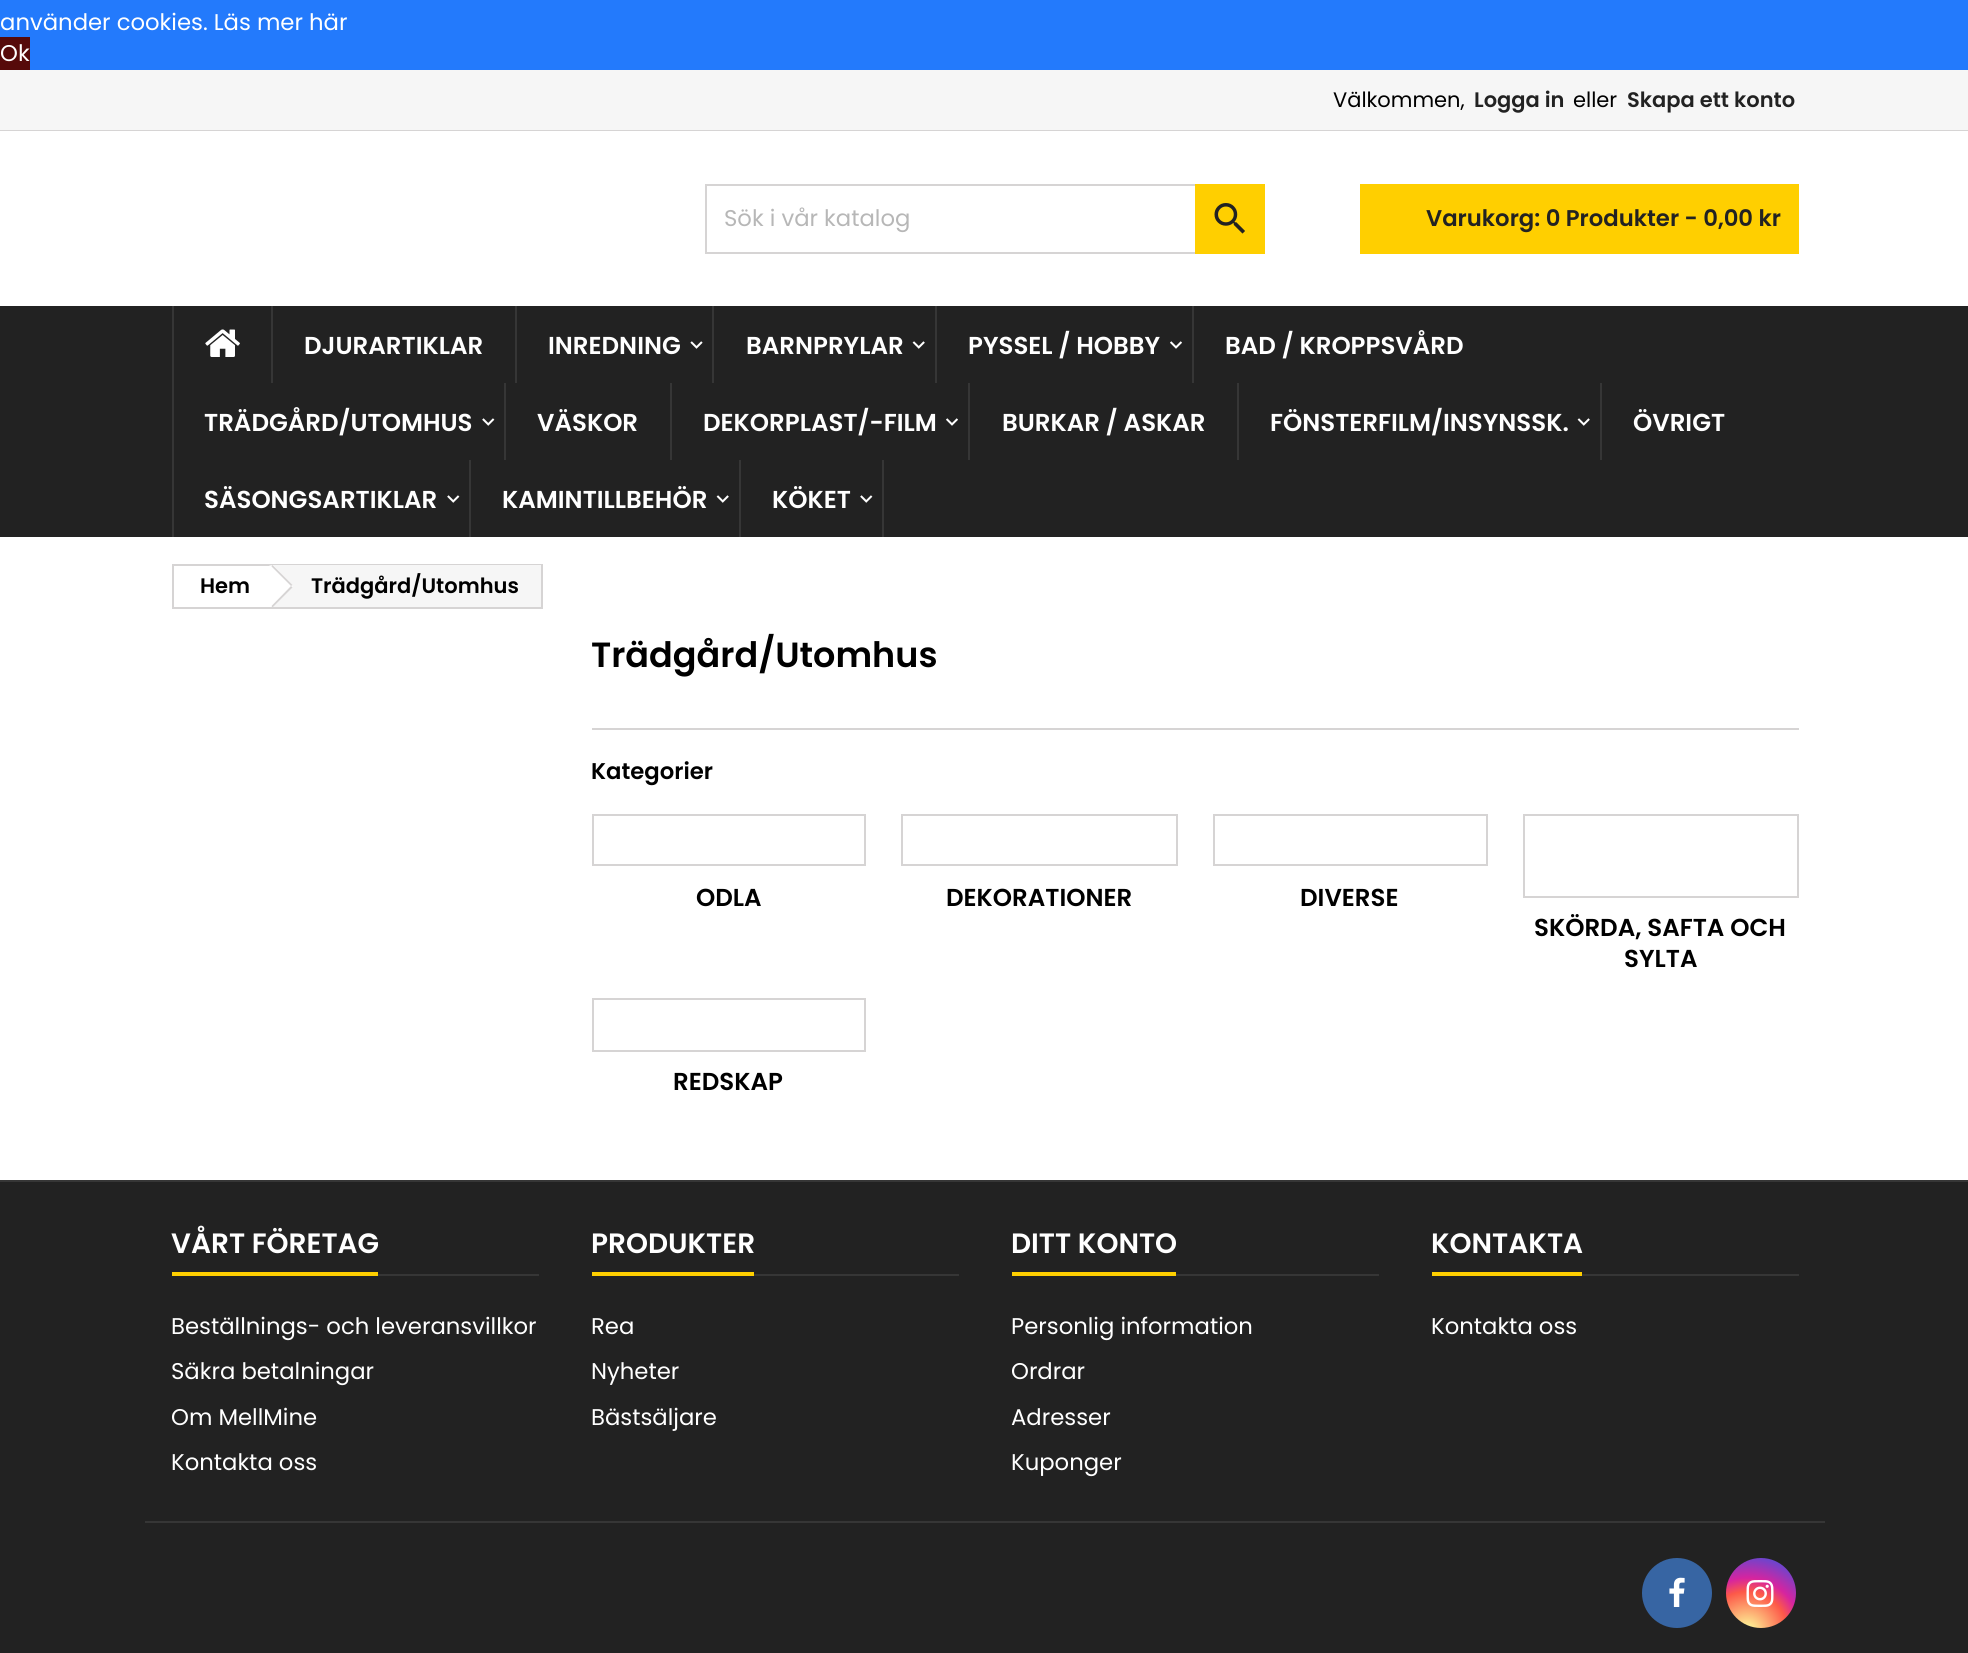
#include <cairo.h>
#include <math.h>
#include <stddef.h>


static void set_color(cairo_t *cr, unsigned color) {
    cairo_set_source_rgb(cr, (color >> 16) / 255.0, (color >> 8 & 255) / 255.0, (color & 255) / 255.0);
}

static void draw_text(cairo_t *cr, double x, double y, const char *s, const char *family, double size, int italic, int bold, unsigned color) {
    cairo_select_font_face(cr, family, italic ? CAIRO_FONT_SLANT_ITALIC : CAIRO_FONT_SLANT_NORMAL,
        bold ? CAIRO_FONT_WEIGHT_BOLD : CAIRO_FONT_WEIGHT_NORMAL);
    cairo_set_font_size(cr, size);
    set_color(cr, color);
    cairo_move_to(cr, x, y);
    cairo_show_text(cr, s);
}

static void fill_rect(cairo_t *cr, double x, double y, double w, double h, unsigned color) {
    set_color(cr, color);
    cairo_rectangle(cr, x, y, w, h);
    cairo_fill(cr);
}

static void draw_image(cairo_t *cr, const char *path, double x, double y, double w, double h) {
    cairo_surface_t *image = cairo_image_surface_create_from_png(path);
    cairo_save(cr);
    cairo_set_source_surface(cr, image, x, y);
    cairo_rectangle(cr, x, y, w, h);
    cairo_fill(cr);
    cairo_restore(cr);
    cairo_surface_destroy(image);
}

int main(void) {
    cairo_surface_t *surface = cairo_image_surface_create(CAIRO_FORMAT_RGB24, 1968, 1653);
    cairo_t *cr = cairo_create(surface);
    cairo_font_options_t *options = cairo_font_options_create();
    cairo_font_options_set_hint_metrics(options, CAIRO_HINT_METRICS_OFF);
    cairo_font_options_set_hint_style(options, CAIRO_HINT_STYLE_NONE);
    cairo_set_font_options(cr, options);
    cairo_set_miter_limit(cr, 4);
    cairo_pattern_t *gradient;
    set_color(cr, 0xFFFFFF);
    cairo_paint(cr);
    fill_rect(cr, 0, 0, 1968, 70, 0x237AFC);
    draw_text(cr, 0, 30, "använder cookies. Läs mer här", "Poppins", 22.75, 0, 0, 0xFFFFFF);
    fill_rect(cr, 0, 37, 30, 33, 0x560A0A);
    draw_text(cr, 0, 61, "Ok", "Poppins", 22.75, 0, 0, 0xFFFFFF);
    fill_rect(cr, 0, 70, 1968, 60, 0xF6F6F6);
    fill_rect(cr, 0, 130, 1968, 1, 0xD6D4D4);
    draw_text(cr, 1333, 107, "Välkommen,", "Poppins", 21, 0, 0, 0x000000);
    draw_text(cr, 1474, 107, "Logga in", "Poppins SemiBold", 21, 0, 0, 0x222222);
    draw_text(cr, 1573, 107, "eller", "Poppins", 21, 0, 0, 0x000000);
    draw_text(cr, 1627, 107, "Skapa ett konto", "Poppins SemiBold", 21, 0, 0, 0x222222);
    cairo_rectangle(cr, 706, 185, 558, 68);
    set_color(cr, 0xD6D4D4);
    cairo_stroke(cr);
    draw_text(cr, 724, 226, "Sök i vår katalog", "Poppins", 22.75, 0, 0, 0xB7B7B7);
    fill_rect(cr, 1195, 184, 70, 70, 0xFFCF00);
    draw_image(cr, "assets/img1.png", 1214, 203, 31, 31);
    fill_rect(cr, 1360, 184, 439, 70, 0xFFCF00);
    draw_text(cr, 1426, 226, "Varukorg: 0 Produkter - 0,00 kr", "Poppins SemiBold", 22.75, 0, 0, 0x222222);
    fill_rect(cr, 0, 306, 1968, 231, 0x222222);
    fill_rect(cr, 172, 306, 2, 231, 0x363636);
    draw_image(cr, "assets/img2.png", 205, 329, 35, 28);
    fill_rect(cr, 271, 306, 2, 77, 0x363636);
    draw_text(cr, 304, 354, "DJURARTIKLAR", "Poppins SemiBold", 24.5, 0, 0, 0xFFFFFF);
    fill_rect(cr, 515, 306, 2, 77, 0x363636);
    draw_text(cr, 548, 354, "INREDNING", "Poppins SemiBold", 24.5, 0, 0, 0xFFFFFF);
    draw_image(cr, "assets/img3.png", 690, 341, 13, 8);
    fill_rect(cr, 712, 306, 2, 77, 0x363636);
    draw_text(cr, 746, 354, "BARNPRYLAR", "Poppins SemiBold", 24.5, 0, 0, 0xFFFFFF);
    draw_image(cr, "assets/img4.png", 912, 341, 13, 8);
    fill_rect(cr, 935, 306, 2, 77, 0x363636);
    draw_text(cr, 968, 354, "PYSSEL / HOBBY", "Poppins SemiBold", 24.5, 0, 0, 0xFFFFFF);
    draw_image(cr, "assets/img5.png", 1170, 341, 12, 8);
    fill_rect(cr, 1192, 306, 2, 77, 0x363636);
    draw_text(cr, 1225, 354, "BAD / KROPPSVÅRD", "Poppins SemiBold", 24.5, 0, 0, 0xFFFFFF);
    draw_text(cr, 204, 431, "TRÄDGÅRD/UTOMHUS", "Poppins SemiBold", 24.5, 0, 0, 0xFFFFFF);
    draw_image(cr, "assets/img6.png", 482, 418, 13, 8);
    fill_rect(cr, 504, 383, 2, 77, 0x363636);
    draw_text(cr, 537, 431, "VÄSKOR", "Poppins SemiBold", 24.5, 0, 0, 0xFFFFFF);
    fill_rect(cr, 670, 383, 2, 77, 0x363636);
    draw_text(cr, 703, 431, "DEKORPLAST/-FILM", "Poppins SemiBold", 24.5, 0, 0, 0xFFFFFF);
    draw_image(cr, "assets/img5.png", 946, 418, 12, 8);
    fill_rect(cr, 968, 383, 2, 77, 0x363636);
    draw_text(cr, 1002, 431, "BURKAR / ASKAR", "Poppins SemiBold", 24.5, 0, 0, 0xFFFFFF);
    fill_rect(cr, 1237, 383, 2, 77, 0x363636);
    draw_text(cr, 1270, 431, "FÖNSTERFILM/INSYNSSK.", "Poppins SemiBold", 24.5, 0, 0, 0xFFFFFF);
    draw_image(cr, "assets/img4.png", 1577, 418, 13, 8);
    fill_rect(cr, 1600, 383, 2, 77, 0x363636);
    draw_text(cr, 1633, 431, "ÖVRIGT", "Poppins SemiBold", 24.5, 0, 0, 0xFFFFFF);
    draw_text(cr, 204, 508, "SÄSONGSARTIKLAR", "Poppins SemiBold", 24.5, 0, 0, 0xFFFFFF);
    draw_image(cr, "assets/img6.png", 447, 495, 13, 8);
    fill_rect(cr, 469, 460, 2, 77, 0x363636);
    draw_text(cr, 502, 508, "KAMINTILLBEHÖR", "Poppins SemiBold", 24.5, 0, 0, 0xFFFFFF);
    draw_image(cr, "assets/img4.png", 716, 495, 13, 8);
    fill_rect(cr, 882, 460, 2, 77, 0x363636);
    fill_rect(cr, 739, 460, 2, 77, 0x363636);
    draw_text(cr, 772, 508, "KÖKET", "Poppins SemiBold", 24.5, 0, 0, 0xFFFFFF);
    draw_image(cr, "assets/img6.png", 860, 495, 13, 8);
    cairo_rectangle(cr, 173, 565, 369, 43);
    set_color(cr, 0xD6D4D4);
    cairo_stroke(cr);
    draw_text(cr, 200, 593, "Hem", "Poppins SemiBold", 21, 0, 0, 0x000000);
    fill_rect(cr, 273, 565, 268, 42, 0xF6F6F6);
    set_color(cr, 0xFFFFFF);
    cairo_new_path(cr);
    cairo_move_to(cr, 274, 566);
    cairo_line_to(cr, 291, 584);
    cairo_curve_to(cr, 293, 585, 293, 587, 291, 589);
    cairo_line_to(cr, 274, 606);
    cairo_curve_to(cr, 273, 607, 270, 607, 269, 606);
    cairo_line_to(cr, 252, 589);
    cairo_curve_to(cr, 250, 587, 250, 585, 252, 584);
    cairo_line_to(cr, 269, 566);
    cairo_curve_to(cr, 270, 565, 273, 565, 274, 566);
    cairo_close_path(cr);
    cairo_fill(cr);
    set_color(cr, 0xD6D4D4);
    cairo_new_path(cr);
    cairo_move_to(cr, 272.5, 565);
    cairo_line_to(cr, 292.5, 585);
    cairo_line_to(cr, 291, 586);
    cairo_line_to(cr, 271.5, 566.5);
    cairo_close_path(cr);
    cairo_move_to(cr, 291, 586);
    cairo_line_to(cr, 292.5, 587.5);
    cairo_line_to(cr, 272.5, 607.5);
    cairo_line_to(cr, 271.5, 606);
    cairo_close_path(cr);
    cairo_fill(cr);
    draw_text(cr, 311, 593, "Trädgård/Utomhus", "Poppins SemiBold", 21, 0, 0, 0x000000);
    draw_text(cr, 591, 667, "Trädgård/Utomhus", "Poppins SemiBold", 35, 0, 0, 0x000000);
    fill_rect(cr, 592, 728, 1207, 2, 0xD6D4D4);
    draw_text(cr, 591, 779, "Kategorier", "Poppins SemiBold", 22.75, 0, 0, 0x000000);
    cairo_rectangle(cr, 593, 815, 272, 50);
    set_color(cr, 0xD6D4D4);
    cairo_stroke(cr);
    draw_text(cr, 696, 906, "ODLA", "Poppins SemiBold", 24.5, 0, 0, 0x000000);
    cairo_rectangle(cr, 902, 815, 275, 50);
    set_color(cr, 0xD6D4D4);
    cairo_stroke(cr);
    draw_text(cr, 946, 906, "DEKORATIONER", "Poppins SemiBold", 24.5, 0, 0, 0x000000);
    cairo_rectangle(cr, 1214, 815, 273, 50);
    set_color(cr, 0xD6D4D4);
    cairo_stroke(cr);
    draw_text(cr, 1300, 906, "DIVERSE", "Poppins SemiBold", 24.5, 0, 0, 0x000000);
    cairo_rectangle(cr, 1524, 815, 274, 82);
    set_color(cr, 0xD6D4D4);
    cairo_stroke(cr);
    draw_text(cr, 1534, 936, "SKÖRDA, SAFTA OCH", "Poppins SemiBold", 24.5, 0, 0, 0x000000);
    draw_text(cr, 1624, 967, "SYLTA", "Poppins SemiBold", 24.5, 0, 0, 0x000000);
    cairo_rectangle(cr, 593, 999, 272, 52);
    set_color(cr, 0xD6D4D4);
    cairo_stroke(cr);
    draw_text(cr, 673, 1090, "REDSKAP", "Poppins SemiBold", 24.5, 0, 0, 0x000000);
    fill_rect(cr, 0, 1182, 1968, 471, 0x222222);
    fill_rect(cr, 0, 1180, 1968, 2, 0x363636);
    fill_rect(cr, 378, 1274, 161, 2, 0x363636);
    fill_rect(cr, 172, 1272, 206, 4, 0xFFCF00);
    draw_text(cr, 171, 1253, "VÅRT FÖRETAG", "Poppins SemiBold", 28, 0, 0, 0xFFFFFF);
    draw_text(cr, 171, 1334, "Beställnings- och leveransvillkor", "Poppins", 22.75, 0, 0, 0xFFFFFF);
    draw_text(cr, 171, 1379, "Säkra betalningar", "Poppins", 22.75, 0, 0, 0xFFFFFF);
    draw_text(cr, 171, 1425, "Om MellMine", "Poppins", 22.75, 0, 0, 0xFFFFFF);
    draw_text(cr, 171, 1470, "Kontakta oss", "Poppins", 22.75, 0, 0, 0xFFFFFF);
    fill_rect(cr, 754, 1274, 205, 2, 0x363636);
    fill_rect(cr, 592, 1272, 162, 4, 0xFFCF00);
    draw_text(cr, 591, 1253, "PRODUKTER", "Poppins SemiBold", 28, 0, 0, 0xFFFFFF);
    draw_text(cr, 591, 1334, "Rea", "Poppins", 22.75, 0, 0, 0xFFFFFF);
    draw_text(cr, 591, 1379, "Nyheter", "Poppins", 22.75, 0, 0, 0xFFFFFF);
    draw_text(cr, 591, 1425, "Bästsäljare", "Poppins", 22.75, 0, 0, 0xFFFFFF);
    fill_rect(cr, 1176, 1274, 203, 2, 0x363636);
    fill_rect(cr, 1012, 1272, 164, 4, 0xFFCF00);
    draw_text(cr, 1011, 1253, "DITT KONTO", "Poppins SemiBold", 28, 0, 0, 0xFFFFFF);
    draw_text(cr, 1011, 1334, "Personlig information", "Poppins", 22.75, 0, 0, 0xFFFFFF);
    draw_text(cr, 1011, 1379, "Ordrar", "Poppins", 22.75, 0, 0, 0xFFFFFF);
    draw_text(cr, 1011, 1425, "Adresser", "Poppins", 22.75, 0, 0, 0xFFFFFF);
    draw_text(cr, 1011, 1470, "Kuponger", "Poppins", 22.75, 0, 0, 0xFFFFFF);
    fill_rect(cr, 1582, 1274, 217, 2, 0x363636);
    fill_rect(cr, 1432, 1272, 150, 4, 0xFFCF00);
    draw_text(cr, 1431, 1253, "KONTAKTA", "Poppins SemiBold", 28, 0, 0, 0xFFFFFF);
    draw_text(cr, 1431, 1334, "Kontakta oss", "Poppins", 22.75, 0, 0, 0xFFFFFF);
    fill_rect(cr, 145, 1521, 1680, 2, 0x363636);
    set_color(cr, 0x3765A3);
    cairo_new_path(cr);
    cairo_arc(cr, 1677, 1593, 35, 0, 2 * M_PI);
    cairo_fill(cr);
    draw_image(cr, "assets/img7.png", 1669, 1577, 16, 30);
    gradient = cairo_pattern_create_radial(1747, 1632, 0, 1747, 1632, 90);
    cairo_pattern_add_color_stop_rgba(gradient, 0, 0.992, 0.957, 0.592, 1);
    cairo_pattern_add_color_stop_rgba(gradient, 0.05, 0.992, 0.957, 0.592, 1);
    cairo_pattern_add_color_stop_rgba(gradient, 0.45, 0.992, 0.349, 0.286, 1);
    cairo_pattern_add_color_stop_rgba(gradient, 0.6, 0.839, 0.141, 0.624, 1);
    cairo_pattern_add_color_stop_rgba(gradient, 1, 0.157, 0.353, 0.922, 1);
    cairo_set_source(cr, gradient);
    cairo_pattern_destroy(gradient);
    cairo_arc(cr, 1761, 1593, 35, 0, 2 * M_PI);
    cairo_fill(cr);
    draw_image(cr, "assets/img8.png", 1746, 1580, 28, 27);
    cairo_surface_write_to_png(surface, "output.png");
    cairo_font_options_destroy(options);
    cairo_destroy(cr);
    cairo_surface_destroy(surface);
    return 0;
}
